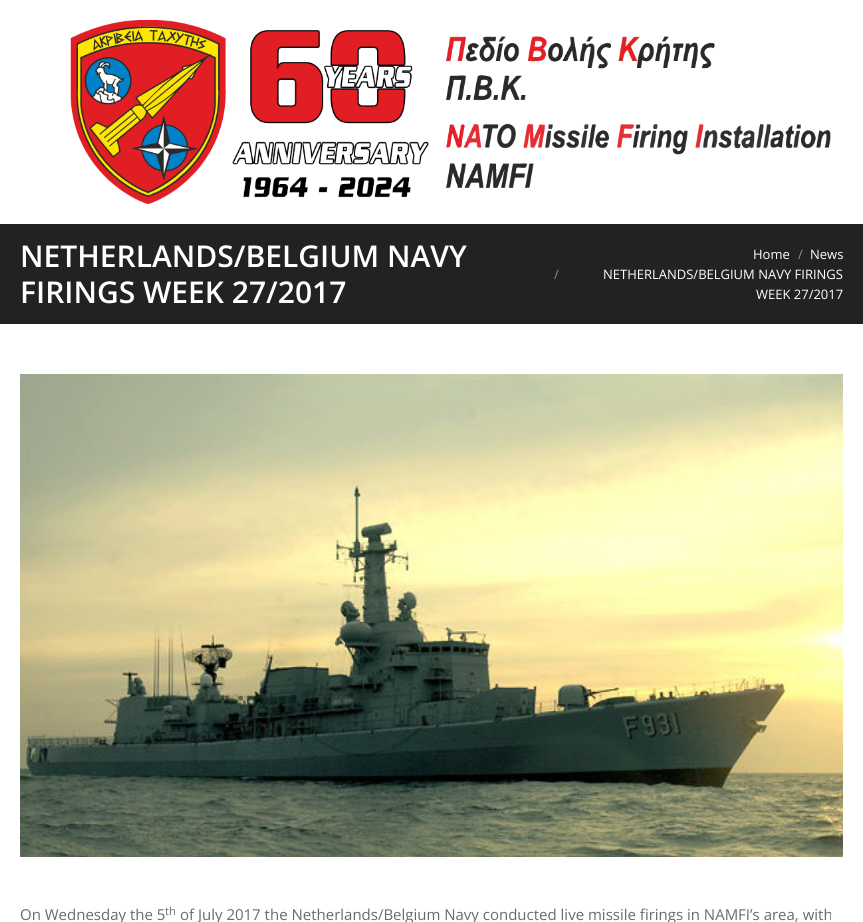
#include <cairo.h>
#include <math.h>
#include <stddef.h>


static void set_color(cairo_t *cr, unsigned color) {
    cairo_set_source_rgb(cr, (color >> 16) / 255.0, (color >> 8 & 255) / 255.0, (color & 255) / 255.0);
}

static void draw_text(cairo_t *cr, double x, double y, const char *s, const char *family, double size, int italic, int bold, unsigned color) {
    cairo_select_font_face(cr, family, italic ? CAIRO_FONT_SLANT_ITALIC : CAIRO_FONT_SLANT_NORMAL,
        bold ? CAIRO_FONT_WEIGHT_BOLD : CAIRO_FONT_WEIGHT_NORMAL);
    cairo_set_font_size(cr, size);
    set_color(cr, color);
    cairo_move_to(cr, x, y);
    cairo_show_text(cr, s);
}

static void fill_rect(cairo_t *cr, double x, double y, double w, double h, unsigned color) {
    set_color(cr, color);
    cairo_rectangle(cr, x, y, w, h);
    cairo_fill(cr);
}

static void draw_image(cairo_t *cr, const char *path, double x, double y, double w, double h) {
    cairo_surface_t *image = cairo_image_surface_create_from_png(path);
    cairo_save(cr);
    cairo_set_source_surface(cr, image, x, y);
    cairo_rectangle(cr, x, y, w, h);
    cairo_fill(cr);
    cairo_restore(cr);
    cairo_surface_destroy(image);
}

int main(void) {
    cairo_surface_t *surface = cairo_image_surface_create(CAIRO_FORMAT_RGB24, 863, 922);
    cairo_t *cr = cairo_create(surface);
    cairo_font_options_t *options = cairo_font_options_create();
    cairo_font_options_set_hint_metrics(options, CAIRO_HINT_METRICS_OFF);
    cairo_font_options_set_hint_style(options, CAIRO_HINT_STYLE_NONE);
    cairo_set_font_options(cr, options);
    cairo_set_miter_limit(cr, 4);
    set_color(cr, 0xFFFFFF);
    cairo_paint(cr);
    draw_image(cr, "assets/img1.png", 70, 20, 761, 184);
    fill_rect(cr, 0, 224, 863, 100, 0x222222);
    draw_text(cr, 20, 267, "NETHERLANDS/BELGIUM NAVY", "Open Sans SemiBold", 30, 0, 0, 0xFFFFFF);
    draw_text(cr, 20, 303, "FIRINGS WEEK 27/2017", "Open Sans SemiBold", 30, 0, 0, 0xFFFFFF);
    draw_text(cr, 753, 259, "Home", "Open Sans", 13, 0, 0, 0xFFFFFF);
    draw_text(cr, 798, 259, "/", "Open Sans", 13, 0, 0, 0x919191);
    draw_text(cr, 810, 259, "News", "Open Sans", 13, 0, 0, 0xFFFFFF);
    draw_text(cr, 554, 279, "/", "Open Sans", 13, 0, 0, 0x919191);
    draw_text(cr, 603, 279, "NETHERLANDS/BELGIUM NAVY FIRINGS", "Open Sans", 13, 0, 0, 0xFFFFFF);
    draw_text(cr, 756, 299, "WEEK 27/2017", "Open Sans", 13, 0, 0, 0xFFFFFF);
    draw_image(cr, "assets/img2.png", 20, 374, 823, 483);
    draw_text(cr, 20, 920, "On Wednesday the 5", "Open Sans", 15, 0, 0, 0x676B6D);
    draw_text(cr, 165, 915, "th", "Open Sans", 11, 0, 0, 0x676B6D);
    draw_text(cr, 180, 920, "of July 2017 the Netherlands/Belgium Navy conducted live missile firings in NAMFI’s area, with", "Open Sans", 15, 0, 0, 0x676B6D);
    cairo_surface_write_to_png(surface, "output.png");
    cairo_font_options_destroy(options);
    cairo_destroy(cr);
    cairo_surface_destroy(surface);
    return 0;
}
